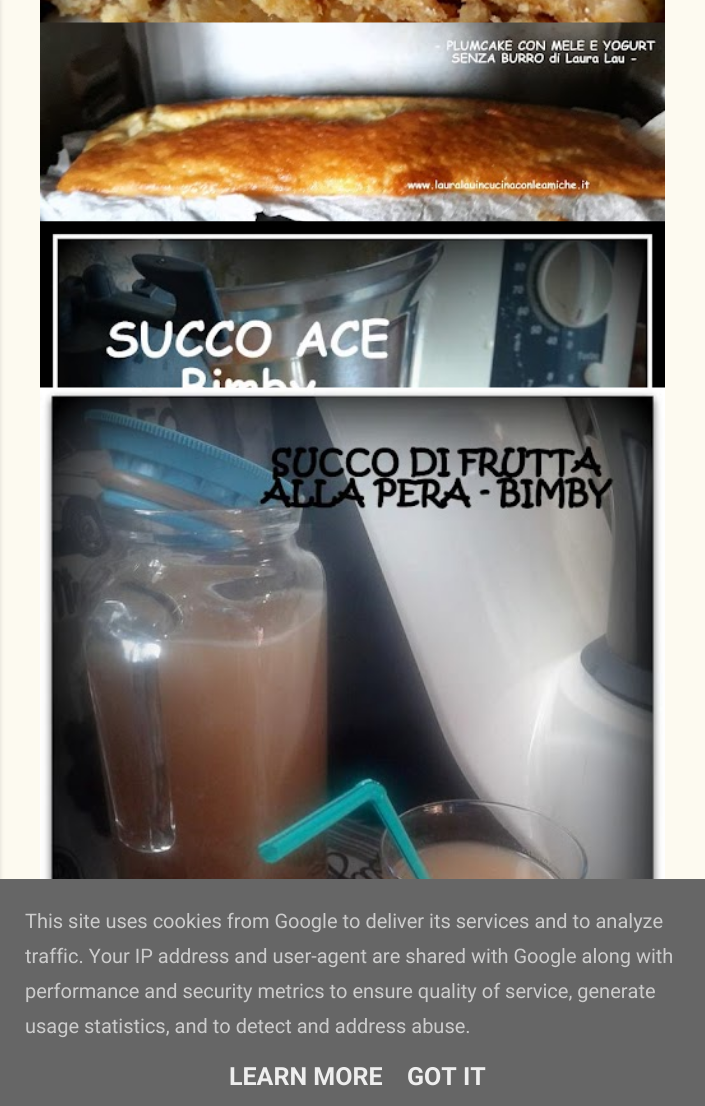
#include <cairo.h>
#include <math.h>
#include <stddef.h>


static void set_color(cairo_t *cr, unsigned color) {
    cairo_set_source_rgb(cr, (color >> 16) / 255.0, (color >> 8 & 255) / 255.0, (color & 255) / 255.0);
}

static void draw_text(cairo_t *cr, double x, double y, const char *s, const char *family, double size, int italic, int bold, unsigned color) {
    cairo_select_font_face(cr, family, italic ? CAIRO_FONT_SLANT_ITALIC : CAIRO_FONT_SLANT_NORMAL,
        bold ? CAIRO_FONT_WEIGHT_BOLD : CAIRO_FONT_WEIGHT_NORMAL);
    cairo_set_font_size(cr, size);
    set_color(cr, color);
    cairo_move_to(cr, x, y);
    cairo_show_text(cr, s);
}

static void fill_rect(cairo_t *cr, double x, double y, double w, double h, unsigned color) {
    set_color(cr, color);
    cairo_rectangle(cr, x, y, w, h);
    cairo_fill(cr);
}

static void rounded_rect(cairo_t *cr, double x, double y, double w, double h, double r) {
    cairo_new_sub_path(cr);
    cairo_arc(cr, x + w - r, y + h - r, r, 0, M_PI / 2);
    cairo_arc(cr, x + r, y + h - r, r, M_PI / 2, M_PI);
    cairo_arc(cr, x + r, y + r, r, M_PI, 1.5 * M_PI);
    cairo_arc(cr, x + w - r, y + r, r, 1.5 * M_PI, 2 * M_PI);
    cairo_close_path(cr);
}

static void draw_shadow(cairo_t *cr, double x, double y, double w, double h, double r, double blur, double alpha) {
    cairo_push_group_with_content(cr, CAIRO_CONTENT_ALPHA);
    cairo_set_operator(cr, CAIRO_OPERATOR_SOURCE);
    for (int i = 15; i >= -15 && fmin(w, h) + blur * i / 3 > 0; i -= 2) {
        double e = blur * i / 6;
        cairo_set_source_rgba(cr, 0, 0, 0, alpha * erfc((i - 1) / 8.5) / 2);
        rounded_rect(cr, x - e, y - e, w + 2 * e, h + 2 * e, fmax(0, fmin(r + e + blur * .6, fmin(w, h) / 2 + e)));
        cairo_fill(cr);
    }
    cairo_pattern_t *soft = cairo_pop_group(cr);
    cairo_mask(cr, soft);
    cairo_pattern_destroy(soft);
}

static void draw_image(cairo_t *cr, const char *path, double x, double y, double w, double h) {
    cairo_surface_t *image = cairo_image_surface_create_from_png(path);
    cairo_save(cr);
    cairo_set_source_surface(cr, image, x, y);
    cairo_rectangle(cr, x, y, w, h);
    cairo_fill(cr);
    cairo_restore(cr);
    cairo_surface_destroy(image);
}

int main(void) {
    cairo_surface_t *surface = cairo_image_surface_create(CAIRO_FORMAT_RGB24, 705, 1106);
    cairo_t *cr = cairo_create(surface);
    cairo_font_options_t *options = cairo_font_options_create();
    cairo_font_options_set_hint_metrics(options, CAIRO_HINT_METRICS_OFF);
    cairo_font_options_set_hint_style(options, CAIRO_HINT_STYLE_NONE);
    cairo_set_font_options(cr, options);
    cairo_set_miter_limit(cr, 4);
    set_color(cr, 0xFDFAF0);
    cairo_paint(cr);
    set_color(cr, 0x000000);
    draw_shadow(cr, -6, 0, 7, 1106, 0, 2, 0.1);
    draw_image(cr, "assets/img1.png", 40, 0, 625, 23);
    draw_image(cr, "assets/img2.png", 40, 22, 625, 200);
    draw_image(cr, "assets/img3.png", 40, 221, 625, 167);
    draw_image(cr, "assets/img4.png", 40, 387, 625, 492);
    fill_rect(cr, 0, 879, 705, 227, 0x666666);
    draw_text(cr, 25, 928, "This site uses cookies from Google to deliver its services and to analyze", "Roboto", 20, 0, 0, 0xCCCCCC);
    draw_text(cr, 25, 963, "traffic. Your IP address and user-agent are shared with Google along with", "Roboto", 20, 0, 0, 0xCCCCCC);
    draw_text(cr, 25, 998, "performance and security metrics to ensure quality of service, generate", "Roboto", 20, 0, 0, 0xCCCCCC);
    draw_text(cr, 25, 1033, "usage statistics, and to detect and address abuse.", "Roboto", 20, 0, 0, 0xCCCCCC);
    draw_text(cr, 229, 1085, "LEARN MORE", "Roboto", 25, 0, 1, 0xEEEEEE);
    draw_text(cr, 407, 1085, "GOT IT", "Roboto", 25, 0, 1, 0xEEEEEE);
    cairo_surface_write_to_png(surface, "output.png");
    cairo_font_options_destroy(options);
    cairo_destroy(cr);
    cairo_surface_destroy(surface);
    return 0;
}
